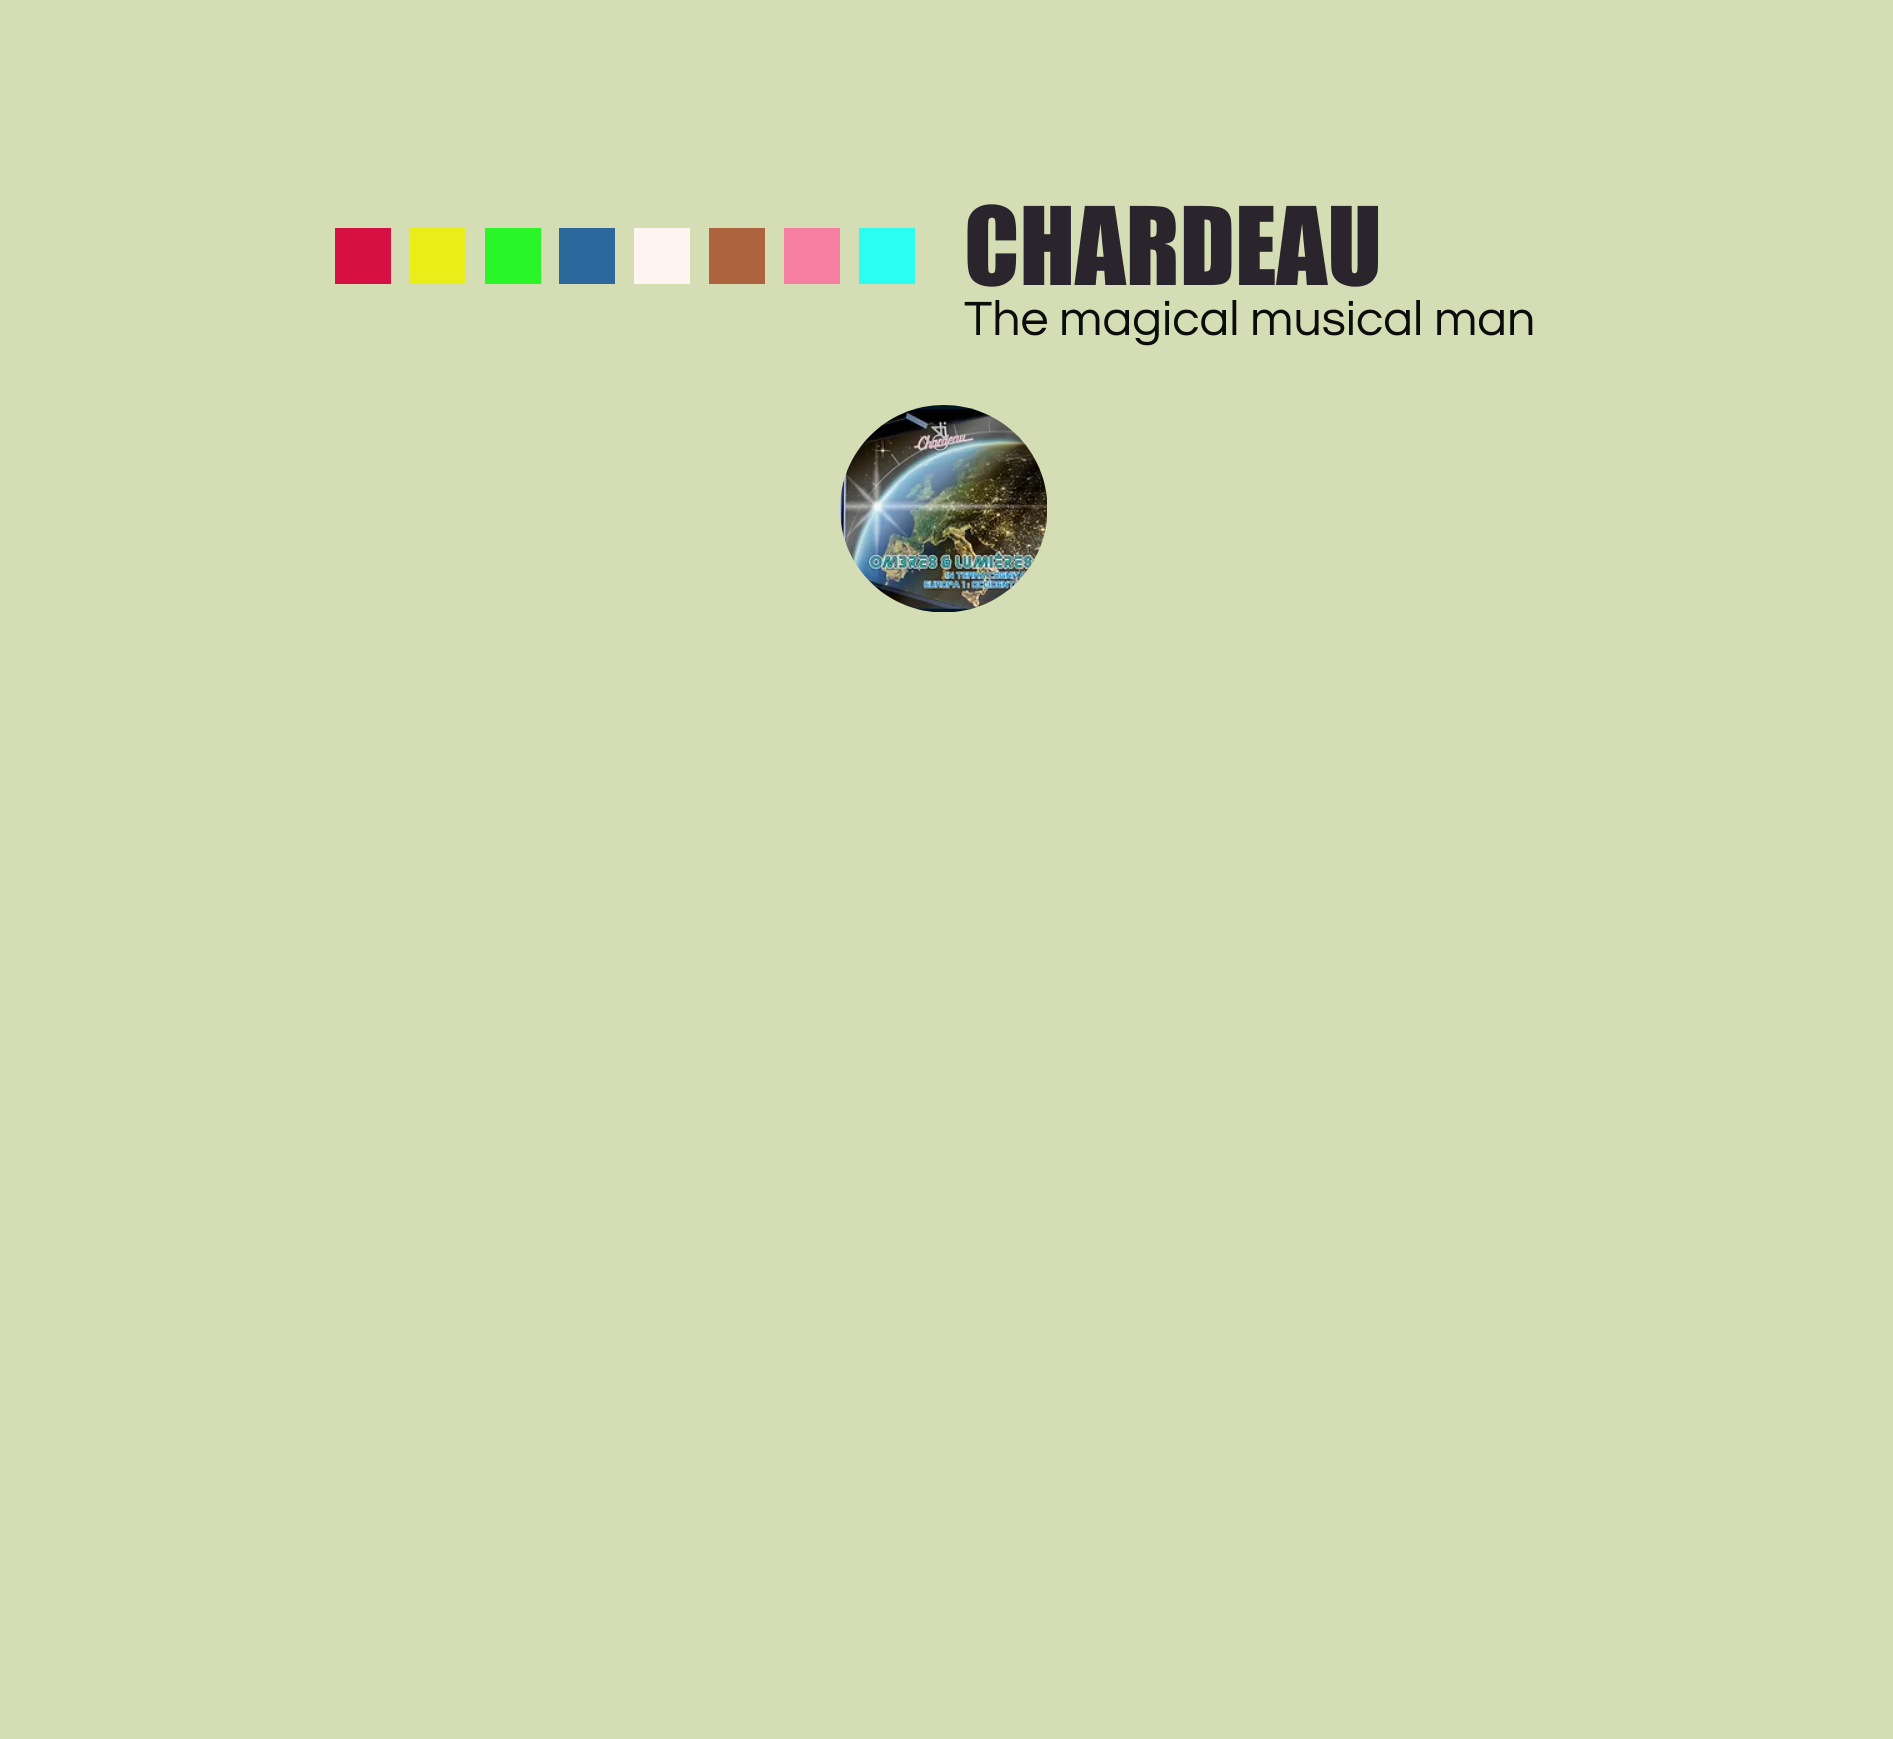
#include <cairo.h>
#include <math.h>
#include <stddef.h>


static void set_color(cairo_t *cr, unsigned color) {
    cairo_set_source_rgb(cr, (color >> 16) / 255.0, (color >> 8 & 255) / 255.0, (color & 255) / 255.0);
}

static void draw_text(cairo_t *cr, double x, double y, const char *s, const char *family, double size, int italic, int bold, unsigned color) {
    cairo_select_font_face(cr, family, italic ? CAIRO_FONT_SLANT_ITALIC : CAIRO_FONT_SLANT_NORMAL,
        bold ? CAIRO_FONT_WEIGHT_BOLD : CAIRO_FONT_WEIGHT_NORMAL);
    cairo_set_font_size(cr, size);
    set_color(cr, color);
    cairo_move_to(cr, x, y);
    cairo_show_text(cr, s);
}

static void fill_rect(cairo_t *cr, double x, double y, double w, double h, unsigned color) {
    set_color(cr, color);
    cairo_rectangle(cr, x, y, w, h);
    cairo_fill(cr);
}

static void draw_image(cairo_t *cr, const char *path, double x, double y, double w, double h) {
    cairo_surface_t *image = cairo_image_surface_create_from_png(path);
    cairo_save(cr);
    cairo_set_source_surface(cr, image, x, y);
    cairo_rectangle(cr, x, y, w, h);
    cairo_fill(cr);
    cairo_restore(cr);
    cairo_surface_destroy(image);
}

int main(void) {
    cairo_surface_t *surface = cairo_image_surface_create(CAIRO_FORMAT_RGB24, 1893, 1739);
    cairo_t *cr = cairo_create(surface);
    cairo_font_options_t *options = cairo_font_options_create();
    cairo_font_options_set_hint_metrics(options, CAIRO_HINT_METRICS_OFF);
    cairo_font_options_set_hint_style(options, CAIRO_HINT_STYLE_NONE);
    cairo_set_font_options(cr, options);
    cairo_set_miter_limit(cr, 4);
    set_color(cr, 0xD4DDB4);
    cairo_paint(cr);
    fill_rect(cr, 335, 228, 56, 56, 0xD61043);
    fill_rect(cr, 410, 228, 56, 56, 0xE9EE19);
    fill_rect(cr, 485, 228, 56, 56, 0x29F529);
    fill_rect(cr, 559, 228, 56, 56, 0x2B689C);
    fill_rect(cr, 634, 228, 56, 56, 0xFFF5F0);
    fill_rect(cr, 709, 228, 56, 56, 0xAE633F);
    fill_rect(cr, 784, 228, 56, 56, 0xF77FA2);
    fill_rect(cr, 859, 228, 56, 56, 0x2BFDF3);
    draw_text(cr, 964, 285, "CHARDEAU", "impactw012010", 100, 0, 0, 0x2A252D);
    draw_text(cr, 964, 335, "The magical musical man", "Questrial", 50, 0, 0, 0x0C0C0C);
    draw_image(cr, "assets/img1.png", 840, 405, 207, 207);
    cairo_surface_write_to_png(surface, "output.png");
    cairo_font_options_destroy(options);
    cairo_destroy(cr);
    cairo_surface_destroy(surface);
    return 0;
}
